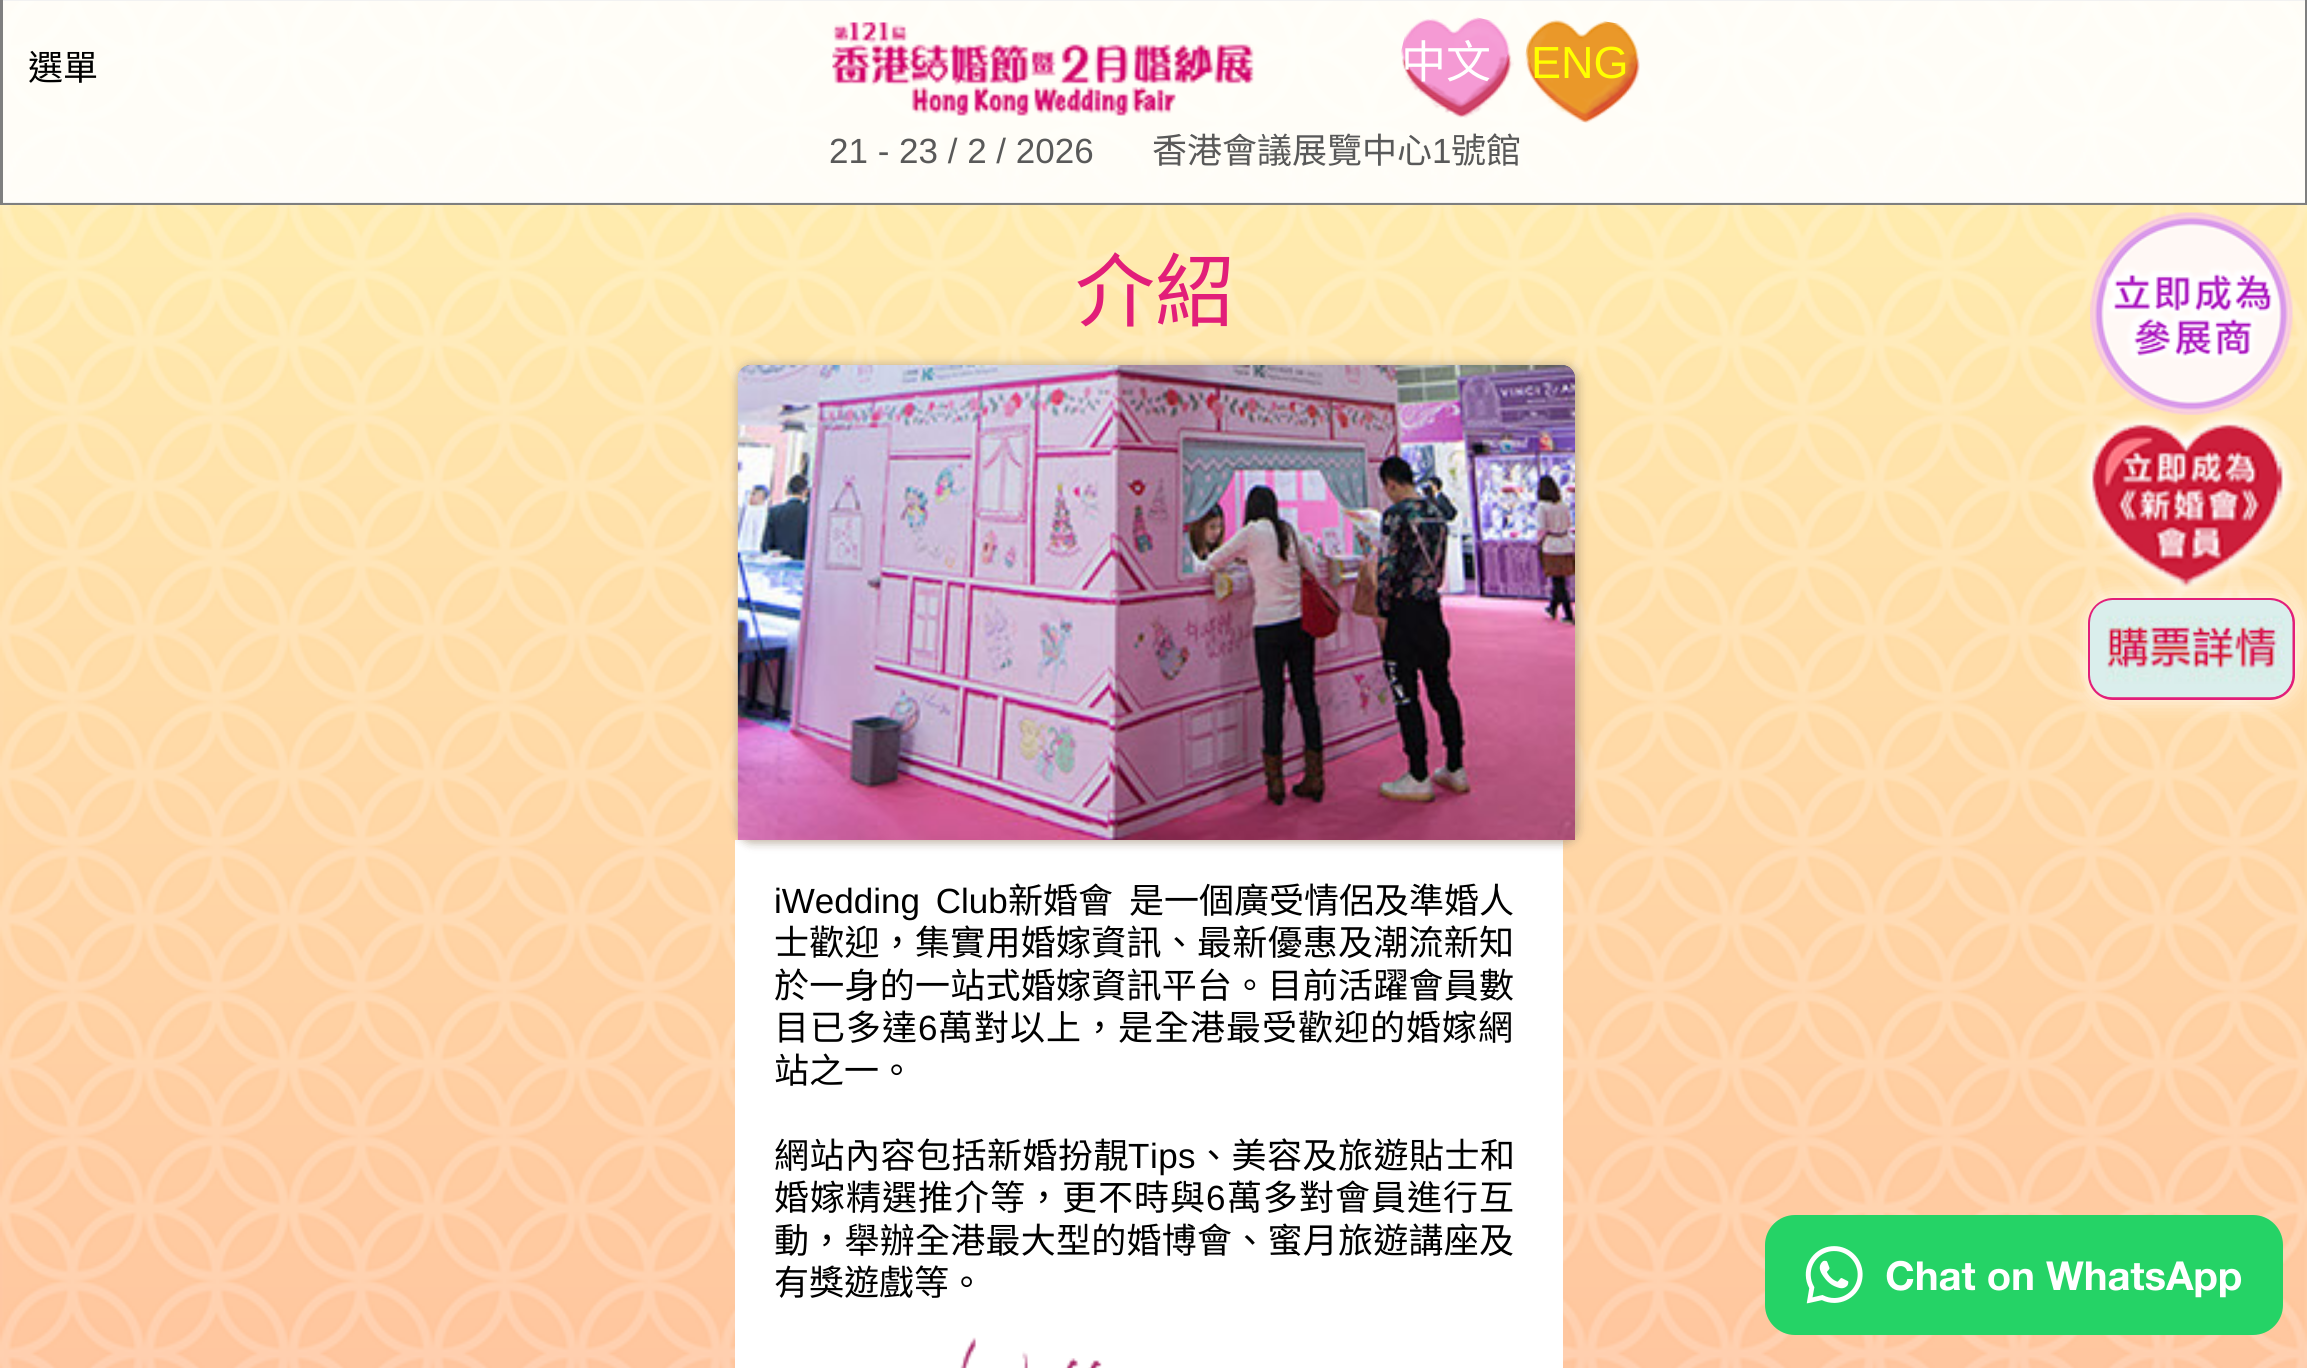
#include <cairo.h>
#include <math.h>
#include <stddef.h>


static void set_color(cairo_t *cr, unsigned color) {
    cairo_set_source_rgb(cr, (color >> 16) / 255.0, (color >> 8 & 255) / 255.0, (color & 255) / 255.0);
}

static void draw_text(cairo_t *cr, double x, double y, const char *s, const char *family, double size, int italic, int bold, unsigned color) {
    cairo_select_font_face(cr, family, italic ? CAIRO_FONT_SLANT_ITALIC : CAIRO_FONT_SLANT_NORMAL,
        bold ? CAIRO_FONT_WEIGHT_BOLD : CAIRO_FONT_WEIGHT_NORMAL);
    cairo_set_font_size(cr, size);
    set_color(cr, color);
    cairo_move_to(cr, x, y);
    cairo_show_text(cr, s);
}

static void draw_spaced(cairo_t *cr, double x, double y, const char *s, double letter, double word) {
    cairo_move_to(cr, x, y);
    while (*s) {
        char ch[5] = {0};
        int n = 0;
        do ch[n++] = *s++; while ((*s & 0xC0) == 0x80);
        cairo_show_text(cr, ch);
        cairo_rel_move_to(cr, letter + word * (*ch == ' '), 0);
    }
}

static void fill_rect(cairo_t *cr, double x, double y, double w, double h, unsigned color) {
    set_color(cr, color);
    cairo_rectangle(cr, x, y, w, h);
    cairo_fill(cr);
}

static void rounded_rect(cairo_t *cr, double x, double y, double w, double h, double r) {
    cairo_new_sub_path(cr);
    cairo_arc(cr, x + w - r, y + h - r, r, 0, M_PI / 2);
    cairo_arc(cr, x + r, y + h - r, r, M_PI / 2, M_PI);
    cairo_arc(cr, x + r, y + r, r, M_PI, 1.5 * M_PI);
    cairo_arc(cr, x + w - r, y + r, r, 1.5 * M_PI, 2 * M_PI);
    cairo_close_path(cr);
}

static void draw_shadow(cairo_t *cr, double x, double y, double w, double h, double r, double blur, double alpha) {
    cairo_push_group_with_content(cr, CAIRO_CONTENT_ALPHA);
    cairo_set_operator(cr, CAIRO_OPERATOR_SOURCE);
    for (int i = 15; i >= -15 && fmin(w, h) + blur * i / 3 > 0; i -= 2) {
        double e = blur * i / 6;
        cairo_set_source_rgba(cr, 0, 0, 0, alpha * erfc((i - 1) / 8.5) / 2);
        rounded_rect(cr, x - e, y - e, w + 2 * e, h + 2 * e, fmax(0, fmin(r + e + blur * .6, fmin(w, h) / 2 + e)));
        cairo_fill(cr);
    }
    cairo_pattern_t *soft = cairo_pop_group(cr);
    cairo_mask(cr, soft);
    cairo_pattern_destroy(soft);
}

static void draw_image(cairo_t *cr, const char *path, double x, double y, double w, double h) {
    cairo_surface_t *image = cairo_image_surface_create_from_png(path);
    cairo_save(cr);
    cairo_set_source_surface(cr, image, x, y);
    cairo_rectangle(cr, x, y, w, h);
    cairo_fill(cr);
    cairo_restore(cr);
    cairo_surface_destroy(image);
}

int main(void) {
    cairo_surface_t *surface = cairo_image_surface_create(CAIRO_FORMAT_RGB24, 2307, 1368);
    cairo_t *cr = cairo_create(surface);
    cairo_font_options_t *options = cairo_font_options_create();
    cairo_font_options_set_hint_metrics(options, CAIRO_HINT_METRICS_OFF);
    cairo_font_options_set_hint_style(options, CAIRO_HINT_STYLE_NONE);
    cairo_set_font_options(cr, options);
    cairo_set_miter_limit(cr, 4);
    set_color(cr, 0xFFFFFF);
    cairo_paint(cr);
    draw_image(cr, "assets/img1.png", 0, 1, 2307, 1367);
    cairo_rectangle(cr, 1.5, -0.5, 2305, 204);
    set_color(cr, 0x7F7F7F);
    cairo_set_line_width(cr, 3);
    cairo_stroke(cr);
    cairo_set_source_rgba(cr, 1, 1, 1, 0.9);
    cairo_rectangle(cr, 3, 0, 2302, 203);
    cairo_fill(cr);
    draw_text(cr, 28, 80, "選單", "Noto Sans CJK TC", 35, 0, 0, 0x000000);
    draw_image(cr, "assets/img2.png", 832, 22, 422, 94);
    draw_image(cr, "assets/img3.png", 1401, 17, 113, 101);
    draw_text(cr, 1401, 78, "中文", "Noto Sans CJK TC", 45, 0, 0, 0xFFFFFF);
    draw_image(cr, "assets/img4.png", 1524, 19, 116, 104);
    draw_text(cr, 1531, 78, "ENG", "Liberation Sans", 45, 0, 0, 0xFFFF00);
    draw_text(cr, 829, 163, "21 - 23 / 2 / 2026", "Liberation Sans", 35, 0, 0, 0x595959);
    draw_text(cr, 1152, 163, "香港會議展覽中心", "Noto Sans CJK TC", 35, 0, 0, 0x595959);
    draw_text(cr, 1432, 163, "1", "Liberation Sans", 35, 0, 0, 0x595959);
    draw_text(cr, 1451, 163, "號館", "Noto Sans CJK TC", 35, 0, 0, 0x595959);
    draw_image(cr, "assets/img6.png", 2078, 411, 219, 186);
    draw_image(cr, "assets/img5.png", 2090, 212, 203, 203);
    set_color(cr, 0xFFFFFF);
    draw_shadow(cr, 2088, 598, 207, 102, 25, 10, 0.5);
    draw_shadow(cr, 2088, 598, 207, 102, 25, 10, 0.5);
    rounded_rect(cr, 2089.5, 599.5, 204, 99, 23.5);
    set_color(cr, 0xE21E79);
    cairo_stroke(cr);
    draw_image(cr, "assets/img7.png", 2090, 600, 203, 98);
    draw_text(cr, 1075, 320, "介紹", "Noto Sans CJK TC", 80, 0, 0, 0xE21E79);
    draw_image(cr, "assets/img8.png", 1765, 1215, 518, 120);
    fill_rect(cr, 735, 840, 828, 528, 0xFFFFFF);
    set_color(cr, 0x000000);
    draw_shadow(cr, 740, 368, 838, 475, 13, 5, 0.2);
    set_color(cr, 0xC7B299);
    draw_shadow(cr, 738, 365, 837, 475, 13, 5, 0.5);
    draw_shadow(cr, 738, 365, 837, 475, 13, 5, 0.5);
    set_color(cr, 0x4F4F4F);
    cairo_new_path(cr);
    cairo_move_to(cr, 751, 365);
    cairo_line_to(cr, 1562, 365);
    cairo_curve_to(cr, 1569, 365, 1575, 371, 1575, 378);
    cairo_line_to(cr, 1575, 840);
    cairo_line_to(cr, 738, 840);
    cairo_line_to(cr, 738, 378);
    cairo_curve_to(cr, 738, 371, 744, 365, 751, 365);
    cairo_close_path(cr);
    cairo_fill(cr);
    draw_image(cr, "assets/img9.png", 737, 365, 838, 475);
    cairo_select_font_face(cr, "Liberation Sans", CAIRO_FONT_SLANT_NORMAL, CAIRO_FONT_WEIGHT_NORMAL);
    cairo_set_font_size(cr, 35);
    set_color(cr, 0x000000);
    draw_spaced(cr, 774, 913, "iWedding Club", 0, 6);
    draw_text(cr, 1008, 913, "新婚會", "Noto Sans CJK TC", 35, 0, 0, 0x000000);
    draw_text(cr, 1129, 913, "是一個廣受情侶及準婚人", "Noto Sans CJK TC", 35, 0, 0, 0x000000);
    draw_spaced(cr, 774, 955, "士歡迎，集實用婚嫁資訊、最新優惠及潮流新知", 0.25, 0);
    draw_spaced(cr, 774, 998, "於一身的一站式婚嫁資訊平台。目前活躍會員數", 0.25, 0);
    draw_spaced(cr, 774, 1040, "目已多達", 1, 0);
    cairo_select_font_face(cr, "Liberation Sans", CAIRO_FONT_SLANT_NORMAL, CAIRO_FONT_WEIGHT_NORMAL);
    draw_spaced(cr, 918, 1040, "6", 1, 0);
    cairo_select_font_face(cr, "Noto Sans CJK TC", CAIRO_FONT_SLANT_NORMAL, CAIRO_FONT_WEIGHT_NORMAL);
    draw_spaced(cr, 938, 1040, "萬對以上，是全港最受歡迎的婚嫁網", 1, 0);
    draw_text(cr, 774, 1083, "站之一。", "Noto Sans CJK TC", 35, 0, 0, 0x000000);
    draw_spaced(cr, 774, 1168, "網站內容包括新婚扮靚", 0.5, 0);
    cairo_select_font_face(cr, "Liberation Sans", CAIRO_FONT_SLANT_NORMAL, CAIRO_FONT_WEIGHT_NORMAL);
    draw_spaced(cr, 1128, 1168, "Tips", 0.5, 0);
    cairo_select_font_face(cr, "Noto Sans CJK TC", CAIRO_FONT_SLANT_NORMAL, CAIRO_FONT_WEIGHT_NORMAL);
    draw_spaced(cr, 1196, 1168, "、美容及旅遊貼士和", 0.5, 0);
    draw_spaced(cr, 774, 1210, "婚嫁精選推介等，更不時與", 1, 0);
    cairo_select_font_face(cr, "Liberation Sans", CAIRO_FONT_SLANT_NORMAL, CAIRO_FONT_WEIGHT_NORMAL);
    draw_spaced(cr, 1206, 1210, "6", 1, 0);
    cairo_select_font_face(cr, "Noto Sans CJK TC", CAIRO_FONT_SLANT_NORMAL, CAIRO_FONT_WEIGHT_NORMAL);
    draw_spaced(cr, 1227, 1210, "萬多對會員進行互", 1, 0);
    draw_spaced(cr, 774, 1253, "動，舉辦全港最大型的婚博會、蜜月旅遊講座及", 0.25, 0);
    draw_text(cr, 774, 1295, "有獎遊戲等。", "Noto Sans CJK TC", 35, 0, 0, 0x000000);
    draw_image(cr, "assets/img10.png", 960, 1337, 142, 31);
    cairo_surface_write_to_png(surface, "output.png");
    cairo_font_options_destroy(options);
    cairo_destroy(cr);
    cairo_surface_destroy(surface);
    return 0;
}
